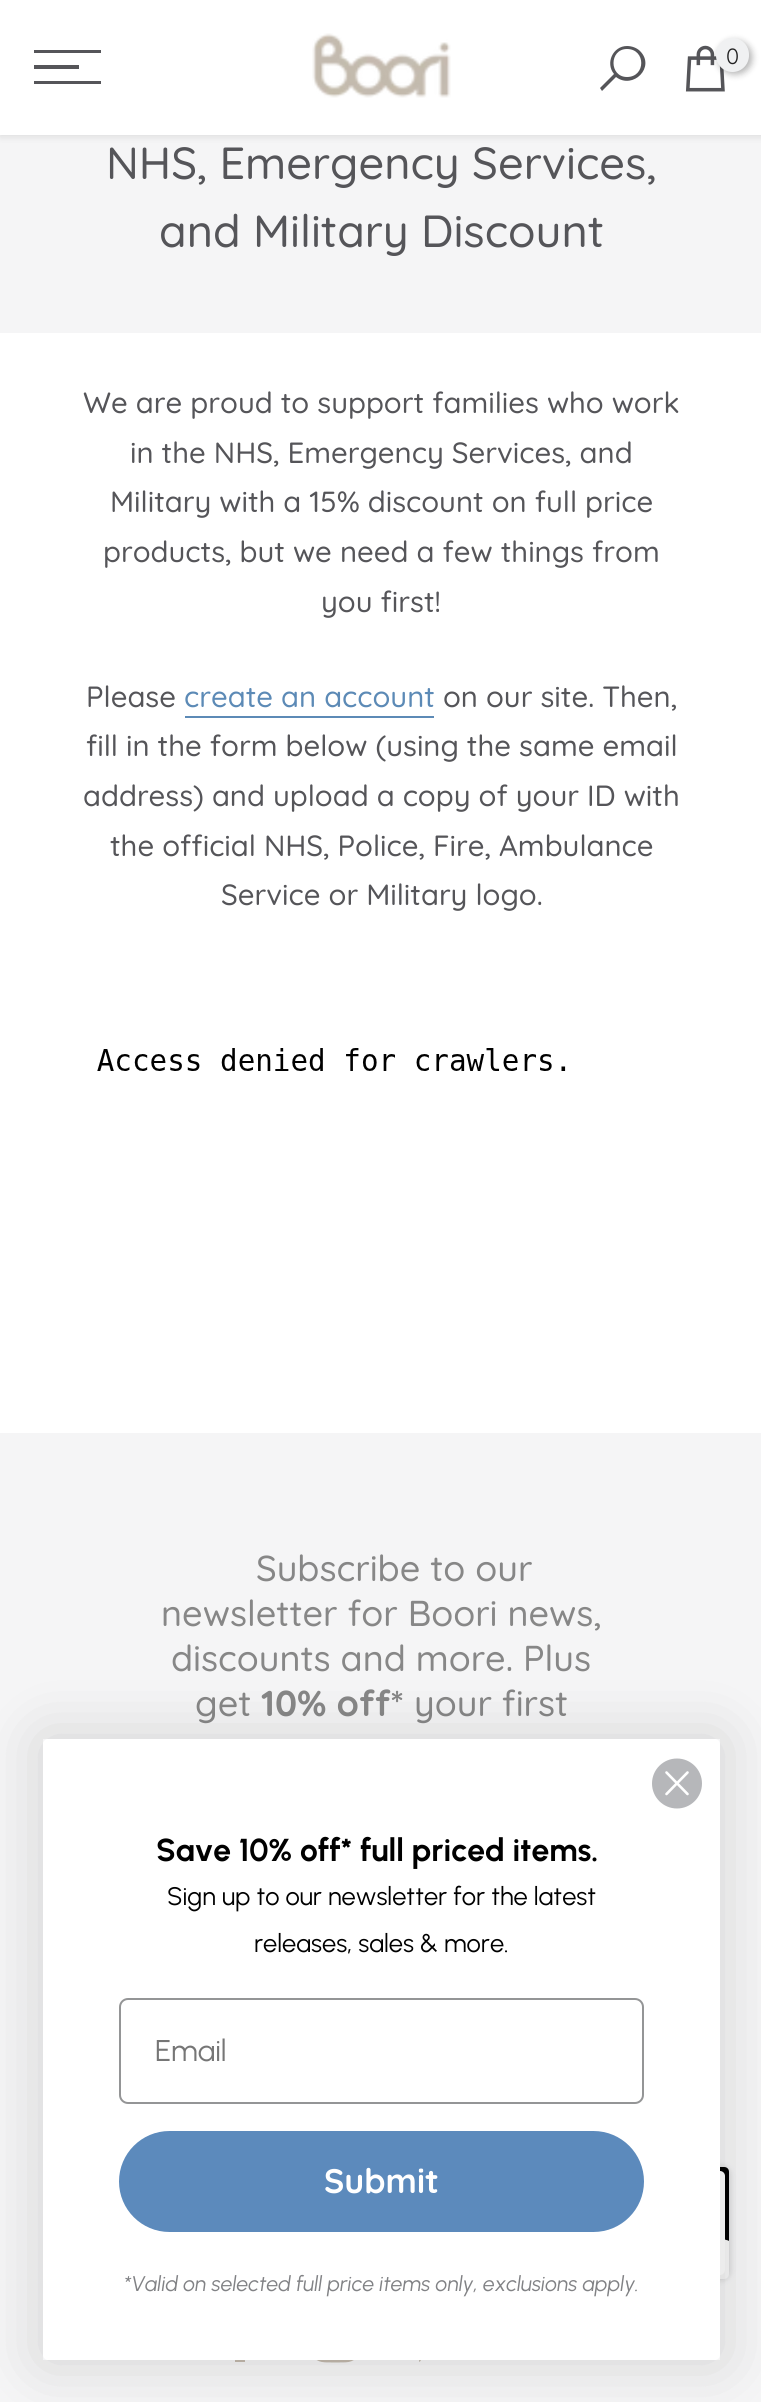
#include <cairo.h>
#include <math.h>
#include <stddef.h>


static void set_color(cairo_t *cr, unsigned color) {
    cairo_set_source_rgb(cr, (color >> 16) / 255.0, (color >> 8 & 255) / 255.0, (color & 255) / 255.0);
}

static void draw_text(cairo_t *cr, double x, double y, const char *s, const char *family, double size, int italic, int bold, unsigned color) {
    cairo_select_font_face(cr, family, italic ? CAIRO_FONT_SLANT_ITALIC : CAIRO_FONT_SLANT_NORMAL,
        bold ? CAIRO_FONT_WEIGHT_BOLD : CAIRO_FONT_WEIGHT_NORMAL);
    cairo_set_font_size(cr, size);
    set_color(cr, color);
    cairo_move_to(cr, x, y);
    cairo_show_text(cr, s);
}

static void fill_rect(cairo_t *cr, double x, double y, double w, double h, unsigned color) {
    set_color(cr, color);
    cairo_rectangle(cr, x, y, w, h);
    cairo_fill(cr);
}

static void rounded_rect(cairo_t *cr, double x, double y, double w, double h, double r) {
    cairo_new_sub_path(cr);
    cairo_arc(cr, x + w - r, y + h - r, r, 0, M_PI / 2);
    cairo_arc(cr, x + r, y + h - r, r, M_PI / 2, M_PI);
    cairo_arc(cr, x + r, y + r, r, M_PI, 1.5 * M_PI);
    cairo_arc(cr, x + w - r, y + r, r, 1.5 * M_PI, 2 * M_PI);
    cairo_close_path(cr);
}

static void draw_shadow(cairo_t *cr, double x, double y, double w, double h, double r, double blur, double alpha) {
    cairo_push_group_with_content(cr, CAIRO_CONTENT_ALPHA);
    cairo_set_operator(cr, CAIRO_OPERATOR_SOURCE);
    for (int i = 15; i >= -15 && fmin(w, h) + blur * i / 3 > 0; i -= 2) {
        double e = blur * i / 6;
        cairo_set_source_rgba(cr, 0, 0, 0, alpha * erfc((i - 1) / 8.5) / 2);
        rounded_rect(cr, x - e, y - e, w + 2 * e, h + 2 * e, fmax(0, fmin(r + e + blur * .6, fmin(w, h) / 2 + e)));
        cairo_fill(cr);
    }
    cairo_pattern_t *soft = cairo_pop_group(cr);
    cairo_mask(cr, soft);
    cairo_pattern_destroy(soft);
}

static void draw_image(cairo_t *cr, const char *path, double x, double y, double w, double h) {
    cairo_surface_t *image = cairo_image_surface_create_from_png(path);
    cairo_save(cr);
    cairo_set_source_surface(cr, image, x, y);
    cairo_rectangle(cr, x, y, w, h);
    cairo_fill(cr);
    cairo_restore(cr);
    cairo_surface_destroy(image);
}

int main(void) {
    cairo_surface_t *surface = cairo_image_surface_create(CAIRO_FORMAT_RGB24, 761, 2402);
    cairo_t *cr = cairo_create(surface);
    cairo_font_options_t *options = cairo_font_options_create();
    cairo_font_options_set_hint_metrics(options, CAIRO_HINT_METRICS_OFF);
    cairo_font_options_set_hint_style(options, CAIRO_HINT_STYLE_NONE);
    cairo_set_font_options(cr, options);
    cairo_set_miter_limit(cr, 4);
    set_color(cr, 0xFFFFFF);
    cairo_paint(cr);
    fill_rect(cr, 0, 135, 761, 198, 0xF5F5F6);
    set_color(cr, 0x000000);
    draw_shadow(cr, 0, 2, 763, 135, 0, 3.5, 0.1);
    fill_rect(cr, 0, 0, 761, 135, 0xFFFFFF);
    fill_rect(cr, 34, 50, 67, 3, 0x555559);
    fill_rect(cr, 34, 65, 45, 4, 0x555559);
    fill_rect(cr, 34, 81, 67, 3, 0x555559);
    draw_image(cr, "assets/img1.png", 312, 33, 139, 65);
    cairo_new_path(cr);
    cairo_move_to(cr, 627, 46);
    cairo_curve_to(cr, 613, 46, 605, 63, 614, 74);
    cairo_line_to(cr, 600, 88);
    cairo_line_to(cr, 602, 91);
    cairo_line_to(cr, 616, 77);
    cairo_curve_to(cr, 633, 90, 656, 67, 640, 51);
    cairo_curve_to(cr, 637, 48, 632, 46, 627, 46);
    cairo_close_path(cr);
    cairo_move_to(cr, 627, 49);
    cairo_curve_to(cr, 646, 49, 646, 77, 627, 77);
    cairo_curve_to(cr, 609, 77, 609, 49, 627, 49);
    cairo_close_path(cr);
    cairo_fill(cr);
    draw_image(cr, "assets/img2.png", 685, 45, 40, 47);
    set_color(cr, 0x000000);
    draw_shadow(cr, 718, 41, 34, 33, 16.5, 3.5, 0.3);
    set_color(cr, 0xF0F1F2);
    rounded_rect(cr, 716, 38, 33, 34, 16.5);
    cairo_fill(cr);
    draw_text(cr, 726, 64, "0", "Quicksand", 22, 0, 0, 0x222222);
    draw_text(cr, 106, 179, "NHS, Emergency Services,", "Quicksand Medium", 45, 0, 0, 0x555559);
    draw_text(cr, 159, 247, "and Military Discount", "Quicksand Medium", 45, 0, 0, 0x555559);
    draw_text(cr, 83, 413, "We are proud to support families who work", "Quicksand Medium", 29.25, 0, 0, 0x555559);
    draw_text(cr, 130, 463, "in the NHS, Emergency Services, and", "Quicksand Medium", 29.25, 0, 0, 0x555559);
    draw_text(cr, 110, 512, "Military with a 15% discount on full price", "Quicksand Medium", 29.25, 0, 0, 0x555559);
    draw_text(cr, 103, 562, "products, but we need a few things from", "Quicksand Medium", 29.25, 0, 0, 0x555559);
    draw_text(cr, 321, 612, "you first!", "Quicksand Medium", 29.25, 0, 0, 0x555559);
    draw_text(cr, 86, 707, "Please", "Quicksand Medium", 29.25, 0, 0, 0x555559);
    draw_text(cr, 184, 707, "create an account", "Quicksand Medium", 29.25, 0, 0, 0x5C8AB6);
    fill_rect(cr, 185, 716, 249, 2, 0x5C8AB6);
    draw_text(cr, 443, 707, "on our site. Then,", "Quicksand Medium", 29.25, 0, 0, 0x555559);
    draw_text(cr, 86, 756, "fill in the form below (using the same email", "Quicksand Medium", 29.25, 0, 0, 0x555559);
    draw_text(cr, 83, 806, "address) and upload a copy of your ID with", "Quicksand Medium", 29.25, 0, 0, 0x555559);
    draw_text(cr, 110, 856, "the official NHS, Police, Fire, Ambulance", "Quicksand Medium", 29.25, 0, 0, 0x555559);
    draw_text(cr, 221, 905, "Service or Military logo.", "Quicksand Medium", 29.25, 0, 0, 0x555559);
    draw_image(cr, "assets/img3.png", 97, 1048, 469, 23);
    fill_rect(cr, 0, 1433, 761, 969, 0xF5F5F6);
    draw_text(cr, 256, 1581, "Subscribe to our", "Quicksand Medium", 36, 0, 0, 0x878787);
    draw_text(cr, 161, 1626, "newsletter for Boori news,", "Quicksand Medium", 36, 0, 0, 0x878787);
    draw_text(cr, 171, 1671, "discounts and more. Plus", "Quicksand Medium", 36, 0, 0, 0x878787);
    draw_text(cr, 195, 1716, "get", "Quicksand Medium", 36, 0, 0, 0x878787);
    draw_text(cr, 261, 1716, "10% off*", "Quicksand", 36, 0, 1, 0x878787);
    draw_text(cr, 414, 1716, "your first", "Quicksand Medium", 36, 0, 0, 0x878787);
    set_color(cr, 0xC4BAAE);
    cairo_new_path(cr);
    cairo_move_to(cr, 252, 2341);
    cairo_line_to(cr, 254, 2332);
    cairo_line_to(cr, 245, 2332);
    cairo_curve_to(cr, 245, 2323, 244, 2321, 254, 2321);
    cairo_line_to(cr, 254, 2314);
    cairo_curve_to(cr, 246, 2312, 237, 2313, 236, 2322);
    cairo_line_to(cr, 235, 2332);
    cairo_line_to(cr, 227, 2332);
    cairo_line_to(cr, 227, 2341);
    cairo_line_to(cr, 235, 2341);
    cairo_line_to(cr, 235, 2362);
    cairo_line_to(cr, 245, 2362);
    cairo_line_to(cr, 245, 2341);
    cairo_close_path(cr);
    cairo_fill(cr);
    draw_image(cr, "assets/img4.png", 316, 2360, 38, 3);
    draw_image(cr, "assets/img5.png", 419, 2360, 2, 2);
    set_color(cr, 0x000000);
    draw_shadow(cr, 617, 2167, 112, 112, 7, 3.5, 0.2);
    set_color(cr, 0x000000);
    cairo_new_path(cr);
    cairo_move_to(cr, 673, 2223);
    cairo_line_to(cr, 729, 2241);
    cairo_line_to(cr, 729, 2172);
    cairo_curve_to(cr, 729, 2169, 727, 2167, 724, 2167);
    cairo_line_to(cr, 673, 2167);
    cairo_close_path(cr);
    cairo_fill(cr);
    set_color(cr, 0xF5F5F5);
    cairo_new_path(cr);
    cairo_move_to(cr, 673, 2223);
    cairo_line_to(cr, 673, 2167);
    cairo_line_to(cr, 622, 2167);
    cairo_curve_to(cr, 619, 2167, 617, 2169, 617, 2172);
    cairo_line_to(cr, 617, 2274);
    cairo_curve_to(cr, 617, 2277, 619, 2279, 622, 2279);
    cairo_line_to(cr, 724, 2279);
    cairo_curve_to(cr, 727, 2279, 729, 2277, 729, 2274);
    cairo_line_to(cr, 729, 2241);
    cairo_close_path(cr);
    cairo_fill(cr);
    set_color(cr, 0xFFFFFF);
    rounded_rect(cr, 621, 2171, 104, 104, 5);
    cairo_fill(cr);
    cairo_save(cr);
    cairo_set_fill_rule(cr, CAIRO_FILL_RULE_EVEN_ODD);
    cairo_new_path(cr);
    cairo_move_to(cr, 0, 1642);
    cairo_line_to(cr, 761, 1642);
    cairo_line_to(cr, 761, 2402);
    cairo_line_to(cr, 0, 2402);
    cairo_close_path(cr);
    cairo_move_to(cr, 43, 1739);
    cairo_line_to(cr, 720, 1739);
    cairo_line_to(cr, 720, 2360);
    cairo_line_to(cr, 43, 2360);
    cairo_close_path(cr);
    cairo_clip(cr);
    set_color(cr, 0x000000);
    draw_shadow(cr, 43, 1739, 677, 621, 0, 32, 0.15);
    cairo_restore(cr);
    rounded_rect(cr, 43, 1739, 677, 621, 5);
    cairo_fill(cr);
    set_color(cr, 0xB6B7BA);
    cairo_arc(cr, 677, 1783.5, 25, 0, 2 * M_PI);
    cairo_fill(cr);
    cairo_new_path(cr);
    cairo_move_to(cr, 666.5, 1772.5);
    cairo_line_to(cr, 687.5, 1794);
    cairo_move_to(cr, 666.5, 1794);
    cairo_line_to(cr, 687.5, 1772.5);
    cairo_close_path(cr);
    set_color(cr, 0xFFFFFF);
    cairo_set_line_width(cr, 2.6);
    cairo_set_line_cap(cr, CAIRO_LINE_CAP_ROUND);
    cairo_set_line_join(cr, CAIRO_LINE_JOIN_ROUND);
    cairo_stroke(cr);
    draw_text(cr, 156, 1861, "Save 10% off* full priced items.", "Urbanist", 31.75, 0, 1, 0x000000);
    draw_text(cr, 167, 1905, "Sign up to our newsletter for the latest", "Urbanist", 25.4, 0, 0, 0x000000);
    draw_text(cr, 254, 1952, "releases, sales & more.", "Urbanist", 25.4, 0, 0, 0x000000);
    rounded_rect(cr, 120, 1999, 523, 104, 8);
    set_color(cr, 0x949596);
    cairo_set_line_width(cr, 2);
    cairo_set_line_cap(cr, CAIRO_LINE_CAP_BUTT);
    cairo_set_line_join(cr, CAIRO_LINE_JOIN_MITER);
    cairo_stroke(cr);
    draw_text(cr, 155, 2061, "Email", "Urbanist", 30, 0, 0, 0x767676);
    set_color(cr, 0x5C8ABC);
    rounded_rect(cr, 119, 2131, 525, 101, 50.5);
    cairo_fill(cr);
    draw_text(cr, 324, 2193, "Submit", "Quicksand", 34, 0, 1, 0xFFFFFF);
    draw_text(cr, 124, 2291, "*Valid on selected full price items only, exclusions apply.", "Urbanist", 21.2, 1, 0, 0x818285);
    cairo_surface_write_to_png(surface, "output.png");
    cairo_font_options_destroy(options);
    cairo_destroy(cr);
    cairo_surface_destroy(surface);
    return 0;
}
